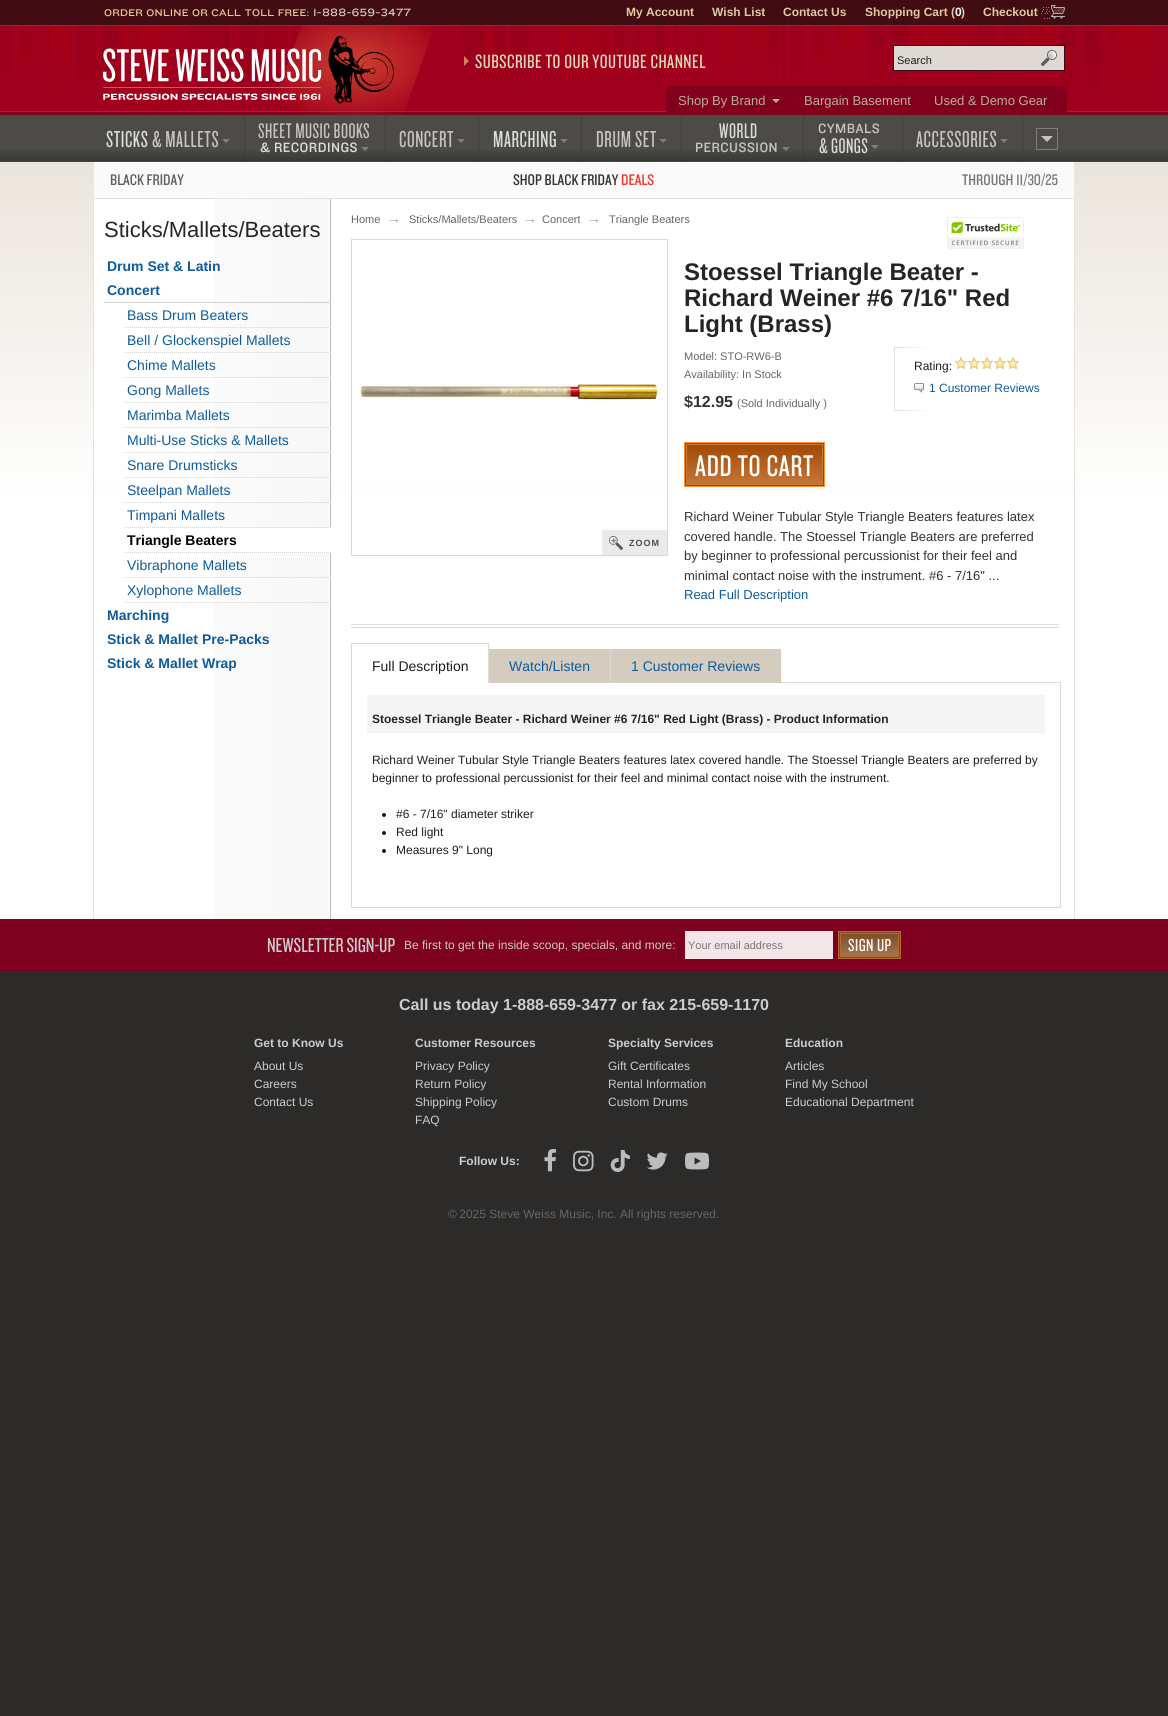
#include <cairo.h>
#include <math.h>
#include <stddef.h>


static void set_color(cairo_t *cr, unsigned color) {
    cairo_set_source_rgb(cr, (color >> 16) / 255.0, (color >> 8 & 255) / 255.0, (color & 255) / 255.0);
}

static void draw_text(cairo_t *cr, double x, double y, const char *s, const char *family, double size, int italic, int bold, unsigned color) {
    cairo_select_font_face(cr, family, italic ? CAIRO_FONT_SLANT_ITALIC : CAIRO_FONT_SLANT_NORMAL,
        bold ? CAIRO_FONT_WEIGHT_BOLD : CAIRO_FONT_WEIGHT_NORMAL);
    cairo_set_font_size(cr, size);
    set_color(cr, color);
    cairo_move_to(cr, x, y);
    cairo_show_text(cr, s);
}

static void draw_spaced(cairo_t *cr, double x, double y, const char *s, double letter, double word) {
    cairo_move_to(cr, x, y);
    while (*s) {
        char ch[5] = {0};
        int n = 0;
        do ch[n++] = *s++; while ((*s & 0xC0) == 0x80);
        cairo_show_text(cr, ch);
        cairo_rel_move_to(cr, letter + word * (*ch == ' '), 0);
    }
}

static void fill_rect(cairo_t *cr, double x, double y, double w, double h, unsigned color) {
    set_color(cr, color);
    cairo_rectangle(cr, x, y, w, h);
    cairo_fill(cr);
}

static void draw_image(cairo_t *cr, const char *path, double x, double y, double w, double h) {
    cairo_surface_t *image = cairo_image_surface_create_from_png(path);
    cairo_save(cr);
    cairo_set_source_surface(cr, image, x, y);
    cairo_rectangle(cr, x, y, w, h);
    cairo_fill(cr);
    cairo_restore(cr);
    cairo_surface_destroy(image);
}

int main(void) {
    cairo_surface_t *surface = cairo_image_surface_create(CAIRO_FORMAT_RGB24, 1168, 1716);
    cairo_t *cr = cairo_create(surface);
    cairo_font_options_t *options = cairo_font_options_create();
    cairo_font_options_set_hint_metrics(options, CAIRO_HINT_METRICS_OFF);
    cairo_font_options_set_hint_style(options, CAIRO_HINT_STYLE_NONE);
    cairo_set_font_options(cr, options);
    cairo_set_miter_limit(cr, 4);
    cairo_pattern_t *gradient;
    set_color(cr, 0x2C2B29);
    cairo_paint(cr);
    gradient = cairo_pattern_create_linear(584, 0, 584, 1263);
    cairo_pattern_add_color_stop_rgba(gradient, 0.14, 0.922, 0.902, 0.867, 1);
    cairo_pattern_add_color_stop_rgba(gradient, 0.4, 1, 1, 1, 1);
    cairo_set_source(cr, gradient);
    cairo_pattern_destroy(gradient);
    cairo_rectangle(cr, 0, 162, 1168, 757);
    cairo_fill(cr);
    draw_image(cr, "assets/img1.png", 0, 0, 1168, 162);
    draw_text(cr, 626, 16, "My Account", "Liberation Sans", 12, 0, 1, 0xE3C89E);
    draw_text(cr, 712, 16, "Wish List", "Liberation Sans", 12, 0, 1, 0xE3C89E);
    draw_text(cr, 783, 16, "Contact Us", "Liberation Sans", 12, 0, 1, 0xE3C89E);
    draw_text(cr, 865, 16, "Shopping Cart (", "Liberation Sans", 12, 0, 1, 0xE3C89E);
    draw_text(cr, 955, 16, "0", "Liberation Sans", 12, 0, 1, 0xFFFFFF);
    draw_text(cr, 961, 16, ")", "Liberation Sans", 12, 0, 1, 0xE3C89E);
    draw_text(cr, 983, 16, "Checkout", "Liberation Sans", 12, 0, 1, 0xE3C89E);
    draw_image(cr, "assets/img2.png", 1041, 5, 24, 14);
    set_color(cr, 0xDEDAD3);
    cairo_rectangle(cr, 893.5, 45.5, 171, 25);
    cairo_fill_preserve(cr);
    set_color(cr, 0x3F0715);
    cairo_set_line_width(cr, 1);
    cairo_stroke(cr);
    draw_text(cr, 897, 64, "Search", "Liberation Sans", 11, 0, 0, 0x201C19);
    draw_image(cr, "assets/img3.png", 1041, 50, 16, 16);
    set_color(cr, 0x82001C);
    cairo_new_path(cr);
    cairo_move_to(cr, 672, 86);
    cairo_line_to(cr, 1061, 86);
    cairo_curve_to(cr, 1064.5, 86, 1067, 88.5, 1067, 92);
    cairo_line_to(cr, 1067, 115);
    cairo_line_to(cr, 666, 115);
    cairo_line_to(cr, 666, 92);
    cairo_curve_to(cr, 666, 88.5, 668.5, 86, 672, 86);
    cairo_close_path(cr);
    cairo_fill(cr);
    draw_text(cr, 678, 105, "Shop By Brand", "Liberation Sans", 13, 0, 0, 0xB7AE9D);
    draw_image(cr, "assets/img4.png", 772, 99, 8, 4);
    draw_text(cr, 804, 105, "Bargain Basement", "Liberation Sans", 13, 0, 0, 0xB7AE9D);
    draw_text(cr, 934, 105, "Used & Demo Gear", "Liberation Sans", 13, 0, 0, 0xB7AE9D);
    cairo_new_path(cr);
    cairo_move_to(cr, 244.5, 115);
    cairo_line_to(cr, 244.5, 162);
    set_color(cr, 0x373634);
    cairo_set_dash(cr, (double[]){1, 1}, 2, 0);
    cairo_stroke(cr);
    cairo_select_font_face(cr, "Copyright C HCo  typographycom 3", CAIRO_FONT_SLANT_NORMAL, CAIRO_FONT_WEIGHT_NORMAL);
    cairo_set_font_size(cr, 24);
    set_color(cr, 0xDCDCDC);
    draw_spaced(cr, 106, 147, "STICKS", 0.6, 0);
    set_color(cr, 0xC7C3BD);
    draw_spaced(cr, 152, 147, "& MALLETS", 0.6, 0);
    set_color(cr, 0x7F7D7B);
    cairo_new_path(cr);
    cairo_move_to(cr, 222, 139);
    cairo_line_to(cr, 230, 139);
    cairo_line_to(cr, 226, 143);
    cairo_close_path(cr);
    cairo_fill(cr);
    cairo_new_path(cr);
    cairo_move_to(cr, 385.5, 115);
    cairo_line_to(cr, 385.5, 162);
    set_color(cr, 0x373634);
    cairo_stroke(cr);
    cairo_set_font_size(cr, 22);
    set_color(cr, 0xC7C3BD);
    draw_spaced(cr, 258, 138, "SHEET MUSIC BOOKS", 0.5, 0);
    cairo_select_font_face(cr, "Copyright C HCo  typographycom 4", CAIRO_FONT_SLANT_NORMAL, CAIRO_FONT_WEIGHT_NORMAL);
    cairo_set_font_size(cr, 14);
    set_color(cr, 0xDCDCDC);
    draw_spaced(cr, 260, 152, "& RECORDINGS", 0.5, 0);
    set_color(cr, 0x7F7D7B);
    cairo_new_path(cr);
    cairo_move_to(cr, 361, 147);
    cairo_line_to(cr, 369, 147);
    cairo_line_to(cr, 365, 151);
    cairo_close_path(cr);
    cairo_fill(cr);
    cairo_new_path(cr);
    cairo_move_to(cr, 478.5, 115);
    cairo_line_to(cr, 478.5, 162);
    set_color(cr, 0x373634);
    cairo_stroke(cr);
    cairo_select_font_face(cr, "Copyright C HCo  typographycom 3", CAIRO_FONT_SLANT_NORMAL, CAIRO_FONT_WEIGHT_NORMAL);
    cairo_set_font_size(cr, 24);
    set_color(cr, 0xC7C3BD);
    draw_spaced(cr, 399, 147, "CONCERT", 0.6, 0);
    set_color(cr, 0x7F7D7B);
    cairo_new_path(cr);
    cairo_move_to(cr, 457, 139);
    cairo_line_to(cr, 465, 139);
    cairo_line_to(cr, 461, 143);
    cairo_close_path(cr);
    cairo_fill(cr);
    cairo_new_path(cr);
    cairo_move_to(cr, 581.5, 115);
    cairo_line_to(cr, 581.5, 162);
    set_color(cr, 0x373634);
    cairo_stroke(cr);
    set_color(cr, 0xDCDCDC);
    draw_spaced(cr, 493, 147, "MARCHING", 0.6, 0);
    set_color(cr, 0x7F7D7B);
    cairo_new_path(cr);
    cairo_move_to(cr, 560, 139);
    cairo_line_to(cr, 568, 139);
    cairo_line_to(cr, 564, 143);
    cairo_close_path(cr);
    cairo_fill(cr);
    cairo_new_path(cr);
    cairo_move_to(cr, 681.5, 115);
    cairo_line_to(cr, 681.5, 162);
    set_color(cr, 0x373634);
    cairo_stroke(cr);
    set_color(cr, 0xC7C3BD);
    draw_spaced(cr, 596, 147, "DRUM SET", 0.6, 0);
    set_color(cr, 0x7F7D7B);
    cairo_new_path(cr);
    cairo_move_to(cr, 659, 139);
    cairo_line_to(cr, 667, 139);
    cairo_line_to(cr, 663, 143);
    cairo_close_path(cr);
    cairo_fill(cr);
    cairo_new_path(cr);
    cairo_move_to(cr, 803.5, 115);
    cairo_line_to(cr, 803.5, 162);
    set_color(cr, 0x373634);
    cairo_stroke(cr);
    cairo_set_font_size(cr, 22);
    set_color(cr, 0xDCDCDC);
    draw_spaced(cr, 719, 138, "WORLD", 0.5, 0);
    cairo_select_font_face(cr, "Copyright C HCo  typographycom 4", CAIRO_FONT_SLANT_NORMAL, CAIRO_FONT_WEIGHT_NORMAL);
    cairo_set_font_size(cr, 14);
    set_color(cr, 0xC7C3BD);
    draw_spaced(cr, 695, 152, "PERCUSSION", 0.5, 0);
    set_color(cr, 0x7F7D7B);
    cairo_new_path(cr);
    cairo_move_to(cr, 782, 147);
    cairo_line_to(cr, 790, 147);
    cairo_line_to(cr, 786, 151);
    cairo_close_path(cr);
    cairo_fill(cr);
    cairo_new_path(cr);
    cairo_move_to(cr, 902.5, 115);
    cairo_line_to(cr, 902.5, 162);
    set_color(cr, 0x373634);
    cairo_stroke(cr);
    set_color(cr, 0xC7C3BD);
    draw_spaced(cr, 818, 133, "CYMBALS", 0.5, 0);
    cairo_select_font_face(cr, "Copyright C HCo  typographycom 3", CAIRO_FONT_SLANT_NORMAL, CAIRO_FONT_WEIGHT_NORMAL);
    cairo_set_font_size(cr, 22);
    set_color(cr, 0xDCDCDC);
    draw_spaced(cr, 819, 153, "& GONGS", 0.5, 0);
    set_color(cr, 0x7F7D7B);
    cairo_new_path(cr);
    cairo_move_to(cr, 871, 145);
    cairo_line_to(cr, 879, 145);
    cairo_line_to(cr, 875, 149);
    cairo_close_path(cr);
    cairo_fill(cr);
    cairo_new_path(cr);
    cairo_move_to(cr, 1022.5, 115);
    cairo_line_to(cr, 1022.5, 162);
    set_color(cr, 0x373634);
    cairo_stroke(cr);
    cairo_set_font_size(cr, 24);
    set_color(cr, 0xC7C3BD);
    draw_spaced(cr, 916, 147, "ACCESSORIES", 0.6, 0);
    set_color(cr, 0x7F7D7B);
    cairo_new_path(cr);
    cairo_move_to(cr, 1000, 139);
    cairo_line_to(cr, 1008, 139);
    cairo_line_to(cr, 1004, 143);
    cairo_close_path(cr);
    cairo_fill(cr);
    cairo_rectangle(cr, 1036.5, 128.5, 21, 21);
    cairo_set_dash(cr, NULL, 0, 0);
    cairo_stroke(cr);
    set_color(cr, 0xC7C3BD);
    cairo_new_path(cr);
    cairo_move_to(cr, 1041, 136);
    cairo_line_to(cr, 1053, 136);
    cairo_line_to(cr, 1047, 142);
    cairo_close_path(cr);
    cairo_fill(cr);
    cairo_select_font_face(cr, "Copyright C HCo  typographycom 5", CAIRO_FONT_SLANT_NORMAL, CAIRO_FONT_WEIGHT_NORMAL);
    cairo_set_font_size(cr, 10);
    set_color(cr, 0xE7C898);
    draw_spaced(cr, 104, 16, "ORDER ONLINE OR CALL TOLL FREE:", 0.25, 0);
    cairo_set_font_size(cr, 11);
    set_color(cr, 0xCECBC4);
    draw_spaced(cr, 313, 16, "1-888-659-3477", 0.25, 0);
    draw_image(cr, "assets/img5.png", 103, 35, 291, 69);
    set_color(cr, 0xCD825A);
    cairo_new_path(cr);
    cairo_move_to(cr, 464, 66);
    cairo_line_to(cr, 464, 56);
    cairo_line_to(cr, 469, 61);
    cairo_close_path(cr);
    cairo_fill(cr);
    cairo_select_font_face(cr, "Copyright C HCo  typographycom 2", CAIRO_FONT_SLANT_NORMAL, CAIRO_FONT_WEIGHT_NORMAL);
    cairo_set_font_size(cr, 20);
    set_color(cr, 0xE0D7B5);
    draw_spaced(cr, 475, 68, "SUBSCRIBE TO OUR YOUTUBE CHANNEL", 0.5, 0);
    fill_rect(cr, 94, 162, 980, 36, 0xFAFAFA);
    fill_rect(cr, 94, 198, 980, 1, 0xE6E2DC);
    draw_text(cr, 110, 185, "BLACK FRIDAY", "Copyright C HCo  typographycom", 16, 0, 0, 0x63605E);
    draw_text(cr, 513, 185, "SHOP BLACK FRIDAY", "Copyright C HCo  typographycom", 16, 0, 0, 0x363330);
    draw_text(cr, 621, 185, "DEALS", "Copyright C HCo  typographycom", 16, 0, 0, 0xF2322C);
    draw_text(cr, 962, 185, "THROUGH 11/30/25", "Copyright C HCo  typographycom", 16, 0, 0, 0x797775);
    fill_rect(cr, 94, 199, 980, 282, 0xFFFFFF);
    draw_image(cr, "assets/img6.png", 214, 199, 117, 720);
    fill_rect(cr, 1074, 199, 1, 720, 0xE6E2DC);
    fill_rect(cr, 93, 199, 1, 720, 0xE6E2DC);
    draw_text(cr, 104, 237, "Sticks/Mallets/Beaters", "Liberation Sans", 22, 0, 0, 0x252523);
    draw_text(cr, 107, 271, "Drum Set & Latin", "Liberation Sans", 14, 0, 1, 0x0D5B9C);
    draw_text(cr, 107, 295, "Concert", "Liberation Sans", 14, 0, 1, 0x0D5B9C);
    fill_rect(cr, 104, 302, 227, 1, 0xD3D3D3);
    cairo_new_path(cr);
    cairo_move_to(cr, 124, 327.5);
    cairo_line_to(cr, 331, 327.5);
    cairo_set_dash(cr, (double[]){1, 1}, 2, 0);
    cairo_stroke(cr);
    draw_text(cr, 127, 320, "Bass Drum Beaters", "Liberation Sans", 14, 0, 0, 0x0D5B9C);
    cairo_new_path(cr);
    cairo_move_to(cr, 124, 352.5);
    cairo_line_to(cr, 331, 352.5);
    set_color(cr, 0xD3D3D3);
    cairo_stroke(cr);
    draw_text(cr, 127, 345, "Bell / Glockenspiel Mallets", "Liberation Sans", 14, 0, 0, 0x0D5B9C);
    cairo_new_path(cr);
    cairo_move_to(cr, 124, 377.5);
    cairo_line_to(cr, 331, 377.5);
    set_color(cr, 0xD3D3D3);
    cairo_stroke(cr);
    draw_text(cr, 127, 370, "Chime Mallets", "Liberation Sans", 14, 0, 0, 0x0D5B9C);
    cairo_new_path(cr);
    cairo_move_to(cr, 124, 402.5);
    cairo_line_to(cr, 331, 402.5);
    set_color(cr, 0xD3D3D3);
    cairo_stroke(cr);
    draw_text(cr, 127, 395, "Gong Mallets", "Liberation Sans", 14, 0, 0, 0x0D5B9C);
    cairo_new_path(cr);
    cairo_move_to(cr, 124, 427.5);
    cairo_line_to(cr, 331, 427.5);
    set_color(cr, 0xD3D3D3);
    cairo_stroke(cr);
    draw_text(cr, 127, 420, "Marimba Mallets", "Liberation Sans", 14, 0, 0, 0x0D5B9C);
    cairo_new_path(cr);
    cairo_move_to(cr, 124, 452.5);
    cairo_line_to(cr, 331, 452.5);
    set_color(cr, 0xD3D3D3);
    cairo_stroke(cr);
    draw_text(cr, 127, 445, "Multi-Use Sticks & Mallets", "Liberation Sans", 14, 0, 0, 0x0D5B9C);
    cairo_new_path(cr);
    cairo_move_to(cr, 124, 477.5);
    cairo_line_to(cr, 331, 477.5);
    set_color(cr, 0xD3D3D3);
    cairo_stroke(cr);
    draw_text(cr, 127, 470, "Snare Drumsticks", "Liberation Sans", 14, 0, 0, 0x0D5B9C);
    cairo_new_path(cr);
    cairo_move_to(cr, 124, 502.5);
    cairo_line_to(cr, 331, 502.5);
    set_color(cr, 0xD3D3D3);
    cairo_stroke(cr);
    draw_text(cr, 127, 495, "Steelpan Mallets", "Liberation Sans", 14, 0, 0, 0x0D5B9C);
    cairo_new_path(cr);
    cairo_move_to(cr, 124, 527.5);
    cairo_line_to(cr, 331, 527.5);
    set_color(cr, 0xD3D3D3);
    cairo_stroke(cr);
    draw_text(cr, 127, 520, "Timpani Mallets", "Liberation Sans", 14, 0, 0, 0x0D5B9C);
    fill_rect(cr, 214, 528, 117, 25, 0xFFFFFF);
    cairo_new_path(cr);
    cairo_move_to(cr, 124, 552.5);
    cairo_line_to(cr, 331, 552.5);
    set_color(cr, 0xD3D3D3);
    cairo_stroke(cr);
    draw_text(cr, 127, 545, "Triangle Beaters", "Liberation Sans", 14, 0, 1, 0x000000);
    cairo_new_path(cr);
    cairo_move_to(cr, 124, 577.5);
    cairo_line_to(cr, 331, 577.5);
    set_color(cr, 0xD3D3D3);
    cairo_stroke(cr);
    draw_text(cr, 127, 570, "Vibraphone Mallets", "Liberation Sans", 14, 0, 0, 0x0D5B9C);
    cairo_new_path(cr);
    cairo_move_to(cr, 124, 602.5);
    cairo_line_to(cr, 331, 602.5);
    set_color(cr, 0xD3D3D3);
    cairo_stroke(cr);
    draw_text(cr, 127, 595, "Xylophone Mallets", "Liberation Sans", 14, 0, 0, 0x0D5B9C);
    draw_text(cr, 107, 620, "Marching", "Liberation Sans", 14, 0, 1, 0x0D5B9C);
    draw_text(cr, 107, 644, "Stick & Mallet Pre-Packs", "Liberation Sans", 14, 0, 1, 0x0D5B9C);
    draw_text(cr, 107, 668, "Stick & Mallet Wrap", "Liberation Sans", 14, 0, 1, 0x0D5B9C);
    draw_text(cr, 351, 223, "Home", "Liberation Sans", 11, 0, 0, 0x666666);
    draw_text(cr, 387, 223, "→", "Liberation Sans", 14, 0, 0, 0xA2A19F);
    draw_text(cr, 409, 223, "Sticks/Mallets/Beaters", "Liberation Sans", 11, 0, 0, 0x666666);
    draw_text(cr, 523, 223, "→", "Liberation Sans", 14, 0, 0, 0xA2A19F);
    draw_text(cr, 542, 223, "Concert", "Liberation Sans", 11, 0, 0, 0x666666);
    draw_text(cr, 587, 223, "→", "Liberation Sans", 14, 0, 0, 0xA2A19F);
    draw_text(cr, 609, 223, "Triangle Beaters", "Liberation Sans", 11, 0, 0, 0x666666);
    draw_text(cr, 684, 280, "Stoessel Triangle Beater -", "Liberation Sans", 24, 0, 1, 0x252523);
    draw_text(cr, 684, 306, "Richard Weiner #6 7/16\" Red", "Liberation Sans", 24, 0, 1, 0x252523);
    draw_text(cr, 684, 332, "Light (Brass)", "Liberation Sans", 24, 0, 1, 0x252523);
    cairo_rectangle(cr, 351.5, 239.5, 316, 316);
    set_color(cr, 0xDBDBDB);
    cairo_set_dash(cr, NULL, 0, 0);
    cairo_stroke(cr);
    draw_image(cr, "assets/img7.png", 360, 384, 304, 16);
    fill_rect(cr, 602, 530, 65, 25, 0xEAEAEB);
    draw_image(cr, "assets/img8.png", 609, 536, 14, 14);
    cairo_set_font_size(cr, 9);
    set_color(cr, 0x4C4C4D);
    draw_spaced(cr, 629, 546, "ZOOM", 1, 0);
    draw_text(cr, 684, 360, "Model: STO-RW6-B", "Liberation Sans", 11, 0, 0, 0x666666);
    draw_text(cr, 684, 378, "Availability: In Stock", "Liberation Sans", 11, 0, 0, 0x666666);
    draw_text(cr, 684, 407, "$12.95", "Liberation Sans", 16, 0, 1, 0x363330);
    draw_text(cr, 737, 407, "(Sold Individually )", "Liberation Sans", 11, 0, 0, 0x666666);
    gradient = cairo_pattern_create_linear(755, 443, 755, 486);
    cairo_pattern_add_color_stop_rgba(gradient, 0, 0.624, 0.278, 0.008, 1);
    cairo_pattern_add_color_stop_rgba(gradient, 1, 0.78, 0.471, 0.235, 1);
    cairo_set_source(cr, gradient);
    cairo_pattern_destroy(gradient);
    cairo_rectangle(cr, 687, 445, 135, 39);
    cairo_fill(cr);
    cairo_save(cr);
    cairo_rectangle(cr, 685, 443, 139, 43);
    cairo_clip(cr);
    set_color(cr, 0xC6773A);
    cairo_set_fill_rule(cr, CAIRO_FILL_RULE_EVEN_ODD);
    cairo_new_path(cr);
    cairo_move_to(cr, 586, 344);
    cairo_line_to(cr, 923, 344);
    cairo_line_to(cr, 923, 585);
    cairo_line_to(cr, 586, 585);
    cairo_close_path(cr);
    cairo_move_to(cr, 683, 441);
    cairo_line_to(cr, 822, 441);
    cairo_line_to(cr, 822, 484);
    cairo_line_to(cr, 683, 484);
    cairo_close_path(cr);
    cairo_fill(cr);
    cairo_new_path(cr);
    cairo_move_to(cr, 586, 344);
    cairo_line_to(cr, 923, 344);
    cairo_line_to(cr, 923, 585);
    cairo_line_to(cr, 586, 585);
    cairo_close_path(cr);
    cairo_move_to(cr, 687, 445);
    cairo_line_to(cr, 826, 445);
    cairo_line_to(cr, 826, 488);
    cairo_line_to(cr, 687, 488);
    cairo_close_path(cr);
    cairo_fill(cr);
    set_color(cr, 0x9F4601);
    cairo_new_path(cr);
    cairo_move_to(cr, 586, 344);
    cairo_line_to(cr, 923, 344);
    cairo_line_to(cr, 923, 585);
    cairo_line_to(cr, 586, 585);
    cairo_close_path(cr);
    cairo_move_to(cr, 684, 442);
    cairo_line_to(cr, 823, 442);
    cairo_line_to(cr, 823, 485);
    cairo_line_to(cr, 684, 485);
    cairo_close_path(cr);
    cairo_fill(cr);
    cairo_new_path(cr);
    cairo_move_to(cr, 586, 344);
    cairo_line_to(cr, 923, 344);
    cairo_line_to(cr, 923, 585);
    cairo_line_to(cr, 586, 585);
    cairo_close_path(cr);
    cairo_move_to(cr, 686, 444);
    cairo_line_to(cr, 825, 444);
    cairo_line_to(cr, 825, 487);
    cairo_line_to(cr, 686, 487);
    cairo_close_path(cr);
    cairo_fill(cr);
    cairo_restore(cr);
    cairo_rectangle(cr, 684.5, 442.5, 140, 44);
    set_color(cr, 0xFE9334);
    cairo_stroke(cr);
    cairo_select_font_face(cr, "Copyright C HCo  typographycom 2", CAIRO_FONT_SLANT_NORMAL, CAIRO_FONT_WEIGHT_NORMAL);
    cairo_set_font_size(cr, 31);
    set_color(cr, 0xFFFFFF);
    draw_spaced(cr, 695, 476, "ADD TO CART", 0.75, 0);
    gradient = cairo_pattern_create_linear(894, 379, 1049, 379);
    cairo_pattern_add_color_stop_rgba(gradient, 0, 0.871, 0.871, 0.871, 1);
    cairo_pattern_add_color_stop_rgba(gradient, 0.25, 1, 1, 1, 1);
    cairo_set_source(cr, gradient);
    cairo_pattern_destroy(gradient);
    cairo_rectangle(cr, 894, 347, 36, 64);
    cairo_fill(cr);
    fill_rect(cr, 895, 348, 35, 62, 0xFFFFFF);
    draw_text(cr, 914, 370, "Rating:", "Liberation Sans", 12, 0, 0, 0x201C19);
    draw_image(cr, "assets/img9.png", 955, 357, 64, 12);
    draw_image(cr, "assets/img10.png", 955, 357, 64, 12);
    draw_image(cr, "assets/img11.png", 914, 383, 10, 10);
    draw_text(cr, 929, 392, "1 Customer Reviews", "Liberation Sans", 12, 0, 0, 0x0D5B9C);
    draw_text(cr, 684, 521, "Richard Weiner Tubular Style Triangle Beaters features latex", "Liberation Sans", 13, 0, 0, 0x363330);
    draw_text(cr, 684, 541, "covered handle. The Stoessel Triangle Beaters are preferred", "Liberation Sans", 13, 0, 0, 0x363330);
    draw_text(cr, 684, 560, "by beginner to professional percussionist for their feel and", "Liberation Sans", 13, 0, 0, 0x363330);
    draw_text(cr, 684, 580, "minimal contact noise with the instrument. #6 - 7/16\" ...", "Liberation Sans", 13, 0, 0, 0x363330);
    draw_text(cr, 684, 599, "Read Full Description", "Liberation Sans", 13, 0, 0, 0x0D5B9C);
    fill_rect(cr, 351, 624, 708, 1, 0xDEDEDE);
    fill_rect(cr, 351, 627, 708, 1, 0xDEDEDE);
    cairo_rectangle(cr, 351.5, 682.5, 709, 225);
    set_color(cr, 0xDEDAD3);
    cairo_stroke(cr);
    fill_rect(cr, 352, 682, 136, 1, 0xFFFFFF);
    fill_rect(cr, 351, 643, 138, 1, 0xDEDAD3);
    fill_rect(cr, 488, 643, 1, 40, 0xDEDAD3);
    fill_rect(cr, 351, 643, 1, 40, 0xDEDAD3);
    draw_text(cr, 372, 671, "Full Description", "Liberation Sans", 14, 0, 0, 0x201C19);
    fill_rect(cr, 489, 649, 121, 34, 0xD3CCBF);
    draw_text(cr, 509, 671, "Watch/Listen", "Liberation Sans", 14, 0, 0, 0x0D5B9C);
    fill_rect(cr, 610, 649, 1, 34, 0xDEDAD3);
    fill_rect(cr, 611, 649, 170, 34, 0xD3CCBF);
    draw_text(cr, 631, 671, "1 Customer Reviews", "Liberation Sans", 14, 0, 0, 0x0D5B9C);
    fill_rect(cr, 367, 695, 678, 38, 0xF4F4F4);
    draw_text(cr, 372, 723, "Stoessel Triangle Beater - Richard Weiner #6 7/16\" Red Light (Brass) - Product Information", "Liberation Sans", 12, 0, 1, 0x252523);
    draw_text(cr, 372, 764, "Richard Weiner Tubular Style Triangle Beaters features latex covered handle. The Stoessel Triangle Beaters are preferred by", "Liberation Sans", 12, 0, 0, 0x201C19);
    draw_text(cr, 372, 782, "beginner to professional percussionist for their feel and minimal contact noise with the instrument.", "Liberation Sans", 12, 0, 0, 0x201C19);
    cairo_new_path(cr);
    cairo_arc(cr, 384, 815, 2, 0, 2 * M_PI);
    cairo_fill(cr);
    draw_text(cr, 396, 818, "#6 - 7/16\" diameter striker", "Liberation Sans", 12, 0, 0, 0x201C19);
    cairo_new_path(cr);
    cairo_arc(cr, 384, 833, 2, 0, 2 * M_PI);
    cairo_fill(cr);
    draw_text(cr, 396, 836, "Red light", "Liberation Sans", 12, 0, 0, 0x201C19);
    cairo_new_path(cr);
    cairo_arc(cr, 384, 851, 2, 0, 2 * M_PI);
    cairo_fill(cr);
    draw_text(cr, 396, 854, "Measures 9\" Long", "Liberation Sans", 12, 0, 0, 0x201C19);
    draw_image(cr, "assets/img12.png", 947, 217, 77, 32);
    fill_rect(cr, 0, 919, 1168, 52, 0x7E011F);
    draw_text(cr, 267, 952, "NEWSLETTER SIGN-UP", "Copyright C HCo  typographycom 2", 21, 0, 0, 0xCCCCCC);
    draw_text(cr, 404, 949, "Be first to get the inside scoop, specials, and more:", "Liberation Sans", 12, 0, 0, 0xCCCCCC);
    fill_rect(cr, 685, 931, 148, 28, 0xF2E6E9);
    draw_text(cr, 688, 949, "Your email address", "Liberation Sans", 11, 0, 0, 0x797775);
    gradient = cairo_pattern_create_linear(870, 932, 870, 958);
    cairo_pattern_add_color_stop_rgba(gradient, 0, 0.486, 0.286, 0.133, 1);
    cairo_pattern_add_color_stop_rgba(gradient, 1, 0.647, 0.475, 0.337, 1);
    cairo_set_source(cr, gradient);
    cairo_pattern_destroy(gradient);
    cairo_rectangle(cr, 841, 934, 57, 22);
    cairo_fill(cr);
    cairo_save(cr);
    cairo_rectangle(cr, 839, 932, 61, 26);
    cairo_clip(cr);
    set_color(cr, 0xB46C35);
    cairo_set_fill_rule(cr, CAIRO_FILL_RULE_EVEN_ODD);
    cairo_new_path(cr);
    cairo_move_to(cr, 740, 833);
    cairo_line_to(cr, 999, 833);
    cairo_line_to(cr, 999, 1057);
    cairo_line_to(cr, 740, 1057);
    cairo_close_path(cr);
    cairo_move_to(cr, 837, 930);
    cairo_line_to(cr, 898, 930);
    cairo_line_to(cr, 898, 956);
    cairo_line_to(cr, 837, 956);
    cairo_close_path(cr);
    cairo_fill(cr);
    cairo_new_path(cr);
    cairo_move_to(cr, 740, 833);
    cairo_line_to(cr, 999, 833);
    cairo_line_to(cr, 999, 1057);
    cairo_line_to(cr, 740, 1057);
    cairo_close_path(cr);
    cairo_move_to(cr, 841, 934);
    cairo_line_to(cr, 902, 934);
    cairo_line_to(cr, 902, 960);
    cairo_line_to(cr, 841, 960);
    cairo_close_path(cr);
    cairo_fill(cr);
    set_color(cr, 0x7C4922);
    cairo_new_path(cr);
    cairo_move_to(cr, 740, 833);
    cairo_line_to(cr, 999, 833);
    cairo_line_to(cr, 999, 1057);
    cairo_line_to(cr, 740, 1057);
    cairo_close_path(cr);
    cairo_move_to(cr, 838, 931);
    cairo_line_to(cr, 899, 931);
    cairo_line_to(cr, 899, 957);
    cairo_line_to(cr, 838, 957);
    cairo_close_path(cr);
    cairo_fill(cr);
    cairo_new_path(cr);
    cairo_move_to(cr, 740, 833);
    cairo_line_to(cr, 999, 833);
    cairo_line_to(cr, 999, 1057);
    cairo_line_to(cr, 740, 1057);
    cairo_close_path(cr);
    cairo_move_to(cr, 840, 933);
    cairo_line_to(cr, 901, 933);
    cairo_line_to(cr, 901, 959);
    cairo_line_to(cr, 840, 959);
    cairo_close_path(cr);
    cairo_fill(cr);
    cairo_restore(cr);
    cairo_rectangle(cr, 838.5, 931.5, 62, 27);
    set_color(cr, 0xB46C35);
    cairo_stroke(cr);
    cairo_select_font_face(cr, "Copyright C HCo  typographycom 2", CAIRO_FONT_SLANT_NORMAL, CAIRO_FONT_WEIGHT_NORMAL);
    cairo_set_font_size(cr, 18);
    set_color(cr, 0xFFFFFF);
    draw_spaced(cr, 848, 951, "SIGN UP", 0.5, 0);
    draw_text(cr, 399, 1010, "Call us today 1-888-659-3477 or fax 215-659-1170", "Liberation Sans", 16, 0, 1, 0xCCCCCC);
    draw_text(cr, 254, 1047, "Get to Know Us", "Liberation Sans", 12, 0, 1, 0xCCCCCC);
    draw_text(cr, 254, 1070, "About Us", "Liberation Sans", 12, 0, 0, 0xCCCCCC);
    draw_text(cr, 254, 1088, "Careers", "Liberation Sans", 12, 0, 0, 0xCCCCCC);
    draw_text(cr, 254, 1106, "Contact Us", "Liberation Sans", 12, 0, 0, 0xCCCCCC);
    draw_text(cr, 415, 1047, "Customer Resources", "Liberation Sans", 12, 0, 1, 0xCCCCCC);
    draw_text(cr, 415, 1070, "Privacy Policy", "Liberation Sans", 12, 0, 0, 0xCCCCCC);
    draw_text(cr, 415, 1088, "Return Policy", "Liberation Sans", 12, 0, 0, 0xCCCCCC);
    draw_text(cr, 415, 1106, "Shipping Policy", "Liberation Sans", 12, 0, 0, 0xCCCCCC);
    draw_text(cr, 415, 1124, "FAQ", "Liberation Sans", 12, 0, 0, 0xCCCCCC);
    draw_text(cr, 608, 1047, "Specialty Services", "Liberation Sans", 12, 0, 1, 0xCCCCCC);
    draw_text(cr, 608, 1070, "Gift Certificates", "Liberation Sans", 12, 0, 0, 0xCCCCCC);
    draw_text(cr, 608, 1088, "Rental Information", "Liberation Sans", 12, 0, 0, 0xCCCCCC);
    draw_text(cr, 608, 1106, "Custom Drums", "Liberation Sans", 12, 0, 0, 0xCCCCCC);
    draw_text(cr, 785, 1047, "Education", "Liberation Sans", 12, 0, 1, 0xCCCCCC);
    draw_text(cr, 785, 1070, "Articles", "Liberation Sans", 12, 0, 0, 0xCCCCCC);
    draw_text(cr, 785, 1088, "Find My School", "Liberation Sans", 12, 0, 0, 0xCCCCCC);
    draw_text(cr, 785, 1106, "Educational Department", "Liberation Sans", 12, 0, 0, 0xCCCCCC);
    draw_text(cr, 459, 1165, "Follow Us:", "Liberation Sans", 12, 0, 1, 0xCCCCCC);
    draw_image(cr, "assets/img13.png", 544, 1149, 13, 23);
    draw_image(cr, "assets/img14.png", 573, 1150, 21, 22);
    draw_image(cr, "assets/img15.png", 610, 1150, 20, 22);
    draw_image(cr, "assets/img16.png", 646, 1152, 22, 18);
    draw_image(cr, "assets/img17.png", 685, 1152, 24, 18);
    draw_text(cr, 448, 1218, "© 2025 Steve Weiss Music, Inc. All rights reserved.", "Liberation Sans", 12, 0, 0, 0x666666);
    cairo_surface_write_to_png(surface, "output.png");
    cairo_font_options_destroy(options);
    cairo_destroy(cr);
    cairo_surface_destroy(surface);
    return 0;
}
